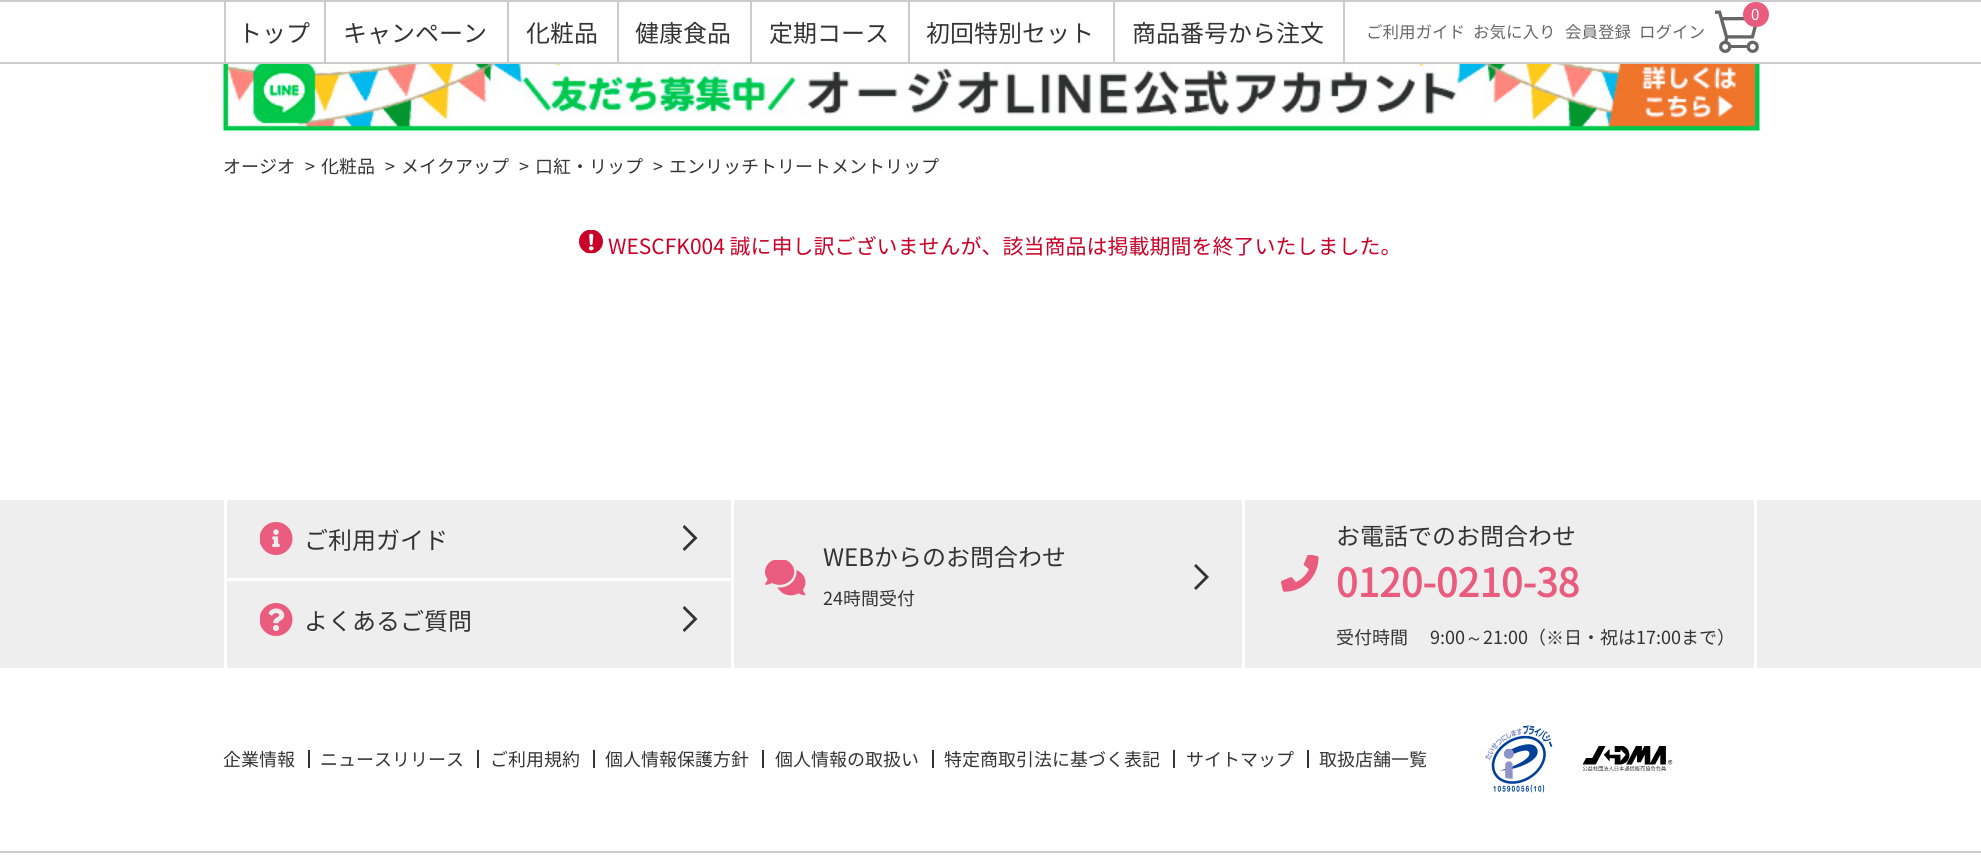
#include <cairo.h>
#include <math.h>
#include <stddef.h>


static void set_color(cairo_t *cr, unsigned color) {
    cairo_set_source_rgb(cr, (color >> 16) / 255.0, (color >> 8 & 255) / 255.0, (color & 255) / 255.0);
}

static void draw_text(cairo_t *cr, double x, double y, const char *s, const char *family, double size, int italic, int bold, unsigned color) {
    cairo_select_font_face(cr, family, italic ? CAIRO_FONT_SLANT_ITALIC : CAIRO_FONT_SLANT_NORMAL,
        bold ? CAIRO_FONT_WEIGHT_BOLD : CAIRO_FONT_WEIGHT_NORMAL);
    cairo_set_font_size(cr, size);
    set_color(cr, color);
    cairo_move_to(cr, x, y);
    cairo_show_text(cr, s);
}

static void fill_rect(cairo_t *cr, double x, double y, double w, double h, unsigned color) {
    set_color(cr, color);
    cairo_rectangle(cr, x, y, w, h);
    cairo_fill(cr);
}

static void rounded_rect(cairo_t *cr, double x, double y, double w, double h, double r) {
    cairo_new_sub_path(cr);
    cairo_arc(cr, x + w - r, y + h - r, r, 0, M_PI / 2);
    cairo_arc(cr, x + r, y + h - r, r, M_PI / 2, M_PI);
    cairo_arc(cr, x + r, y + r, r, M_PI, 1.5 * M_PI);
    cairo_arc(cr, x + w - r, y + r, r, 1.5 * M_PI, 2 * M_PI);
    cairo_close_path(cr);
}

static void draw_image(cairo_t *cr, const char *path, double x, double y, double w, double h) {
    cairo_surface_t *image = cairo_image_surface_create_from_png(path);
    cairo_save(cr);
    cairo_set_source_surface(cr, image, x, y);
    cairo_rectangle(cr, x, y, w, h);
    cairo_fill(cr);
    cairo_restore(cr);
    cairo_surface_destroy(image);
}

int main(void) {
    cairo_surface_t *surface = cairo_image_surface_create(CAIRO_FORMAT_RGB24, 1981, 857);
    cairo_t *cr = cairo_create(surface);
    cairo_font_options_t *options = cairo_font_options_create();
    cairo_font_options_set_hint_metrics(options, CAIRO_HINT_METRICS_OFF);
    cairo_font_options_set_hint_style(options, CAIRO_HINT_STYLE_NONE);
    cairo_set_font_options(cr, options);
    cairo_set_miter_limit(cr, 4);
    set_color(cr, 0xFFFFFF);
    cairo_paint(cr);
    fill_rect(cr, 0, 0, 1981, 2, 0xCCCCCC);
    fill_rect(cr, 0, 62, 1981, 2, 0xCCCCCC);
    fill_rect(cr, 324, 2, 2, 60, 0xCCCCCC);
    fill_rect(cr, 224, 2, 2, 60, 0xCCCCCC);
    draw_text(cr, 238, 42, "トップ", "Noto Sans JP", 24, 0, 0, 0x333333);
    fill_rect(cr, 507, 2, 2, 60, 0xCCCCCC);
    draw_text(cr, 343, 42, "キャンペーン", "Noto Sans JP", 24, 0, 0, 0x333333);
    fill_rect(cr, 617, 2, 2, 60, 0xCCCCCC);
    draw_text(cr, 526, 42, "化粧品", "Noto Sans JP", 24, 0, 0, 0x333333);
    fill_rect(cr, 750, 2, 2, 60, 0xCCCCCC);
    draw_text(cr, 635, 42, "健康食品", "Noto Sans JP", 24, 0, 0, 0x333333);
    fill_rect(cr, 908, 2, 2, 60, 0xCCCCCC);
    draw_text(cr, 769, 42, "定期コース", "Noto Sans JP", 24, 0, 0, 0x333333);
    fill_rect(cr, 1113, 2, 2, 60, 0xCCCCCC);
    draw_text(cr, 926, 42, "初回特別セット", "Noto Sans JP", 24, 0, 0, 0x333333);
    fill_rect(cr, 1343, 2, 2, 60, 0xCCCCCC);
    draw_text(cr, 1132, 42, "商品番号から注文", "Noto Sans JP", 24, 0, 0, 0x333333);
    draw_image(cr, "assets/img1.png", 1715, 10, 44, 43);
    set_color(cr, 0xEA5C7D);
    rounded_rect(cr, 1743, 2, 26, 25, 12.5);
    cairo_fill(cr);
    draw_text(cr, 1751, 20, "0", "Noto Sans JP", 15, 0, 0, 0xFFFFFF);
    draw_text(cr, 1366, 38, "ご利用ガイド", "Noto Sans JP", 16.5, 0, 0, 0x666666);
    draw_text(cr, 1473, 38, "お気に入り", "Noto Sans JP", 16.5, 0, 0, 0x666666);
    draw_text(cr, 1565, 38, "会員登録", "Noto Sans JP", 16.5, 0, 0, 0x666666);
    draw_text(cr, 1639, 38, "ログイン", "Noto Sans JP", 16.5, 0, 0, 0x666666);
    draw_image(cr, "assets/img2.png", 223, 64, 1537, 67);
    draw_text(cr, 223, 173, "オージオ", "Noto Sans JP", 18, 0, 0, 0x333333);
    draw_text(cr, 305, 173, ">", "Noto Sans JP", 18, 0, 0, 0x333333);
    draw_text(cr, 321, 173, "化粧品", "Noto Sans JP", 18, 0, 0, 0x333333);
    draw_text(cr, 385, 173, ">", "Noto Sans JP", 18, 0, 0, 0x333333);
    draw_text(cr, 401, 173, "メイクアップ", "Noto Sans JP", 18, 0, 0, 0x333333);
    draw_text(cr, 519, 173, ">", "Noto Sans JP", 18, 0, 0, 0x333333);
    draw_text(cr, 535, 173, "口紅・リップ", "Noto Sans JP", 18, 0, 0, 0x333333);
    draw_text(cr, 653, 173, ">", "Noto Sans JP", 18, 0, 0, 0x333333);
    draw_text(cr, 669, 173, "エンリッチトリートメントリップ", "Noto Sans JP", 18, 0, 0, 0x333333);
    draw_image(cr, "assets/img3.png", 579, 230, 24, 24);
    draw_text(cr, 608, 254, "WESCFK004 誠に申し訳ございませんが、該当商品は掲載期間を終了いたしました。", "Noto Sans JP", 21, 0, 0, 0xC90027);
    fill_rect(cr, 0, 500, 1981, 168, 0xEEEEEE);
    fill_rect(cr, 731, 500, 3, 168, 0xFFFFFF);
    fill_rect(cr, 224, 500, 3, 168, 0xFFFFFF);
    fill_rect(cr, 227, 578, 504, 3, 0xFFFFFF);
    draw_image(cr, "assets/img4.png", 260, 522, 33, 33);
    draw_text(cr, 304, 549, "ご利用ガイド", "Noto Sans JP", 24, 0, 0, 0x333333);
    cairo_save(cr);
    cairo_rectangle(cr, 683, 525, 15, 27);
    cairo_clip(cr);
    cairo_new_path(cr);
    cairo_move_to(cr, 684.5, 525);
    cairo_line_to(cr, 682.5, 527);
    cairo_line_to(cr, 693.5, 538);
    cairo_line_to(cr, 682.5, 549);
    cairo_line_to(cr, 684.5, 551);
    cairo_line_to(cr, 697.5, 538);
    cairo_close_path(cr);
    cairo_fill(cr);
    cairo_restore(cr);
    draw_image(cr, "assets/img5.png", 260, 603, 33, 33);
    draw_text(cr, 304, 630, "よくあるご質問", "Noto Sans JP", 24, 0, 0, 0x333333);
    cairo_save(cr);
    cairo_rectangle(cr, 683, 606, 15, 27);
    cairo_clip(cr);
    cairo_new_path(cr);
    cairo_move_to(cr, 684.5, 606);
    cairo_line_to(cr, 682.5, 608);
    cairo_line_to(cr, 693.5, 619);
    cairo_line_to(cr, 682.5, 630);
    cairo_line_to(cr, 684.5, 632);
    cairo_line_to(cr, 697.5, 619);
    cairo_close_path(cr);
    cairo_fill(cr);
    cairo_restore(cr);
    fill_rect(cr, 1242, 500, 3, 168, 0xFFFFFF);
    draw_text(cr, 823, 566, "WEBからのお問合わせ", "Noto Sans JP", 24, 0, 0, 0x333333);
    draw_image(cr, "assets/img6.png", 765, 560, 41, 36);
    cairo_new_path(cr);
    cairo_move_to(cr, 1196, 564);
    cairo_line_to(cr, 1194, 566);
    cairo_line_to(cr, 1205, 577);
    cairo_line_to(cr, 1194, 588);
    cairo_line_to(cr, 1196, 590);
    cairo_line_to(cr, 1209, 577);
    cairo_close_path(cr);
    cairo_fill(cr);
    draw_text(cr, 823, 605, "24時間受付", "Noto Sans JP", 18, 0, 0, 0x333333);
    fill_rect(cr, 1754, 500, 3, 168, 0xFFFFFF);
    draw_text(cr, 1336, 545, "お電話でのお問合わせ", "Noto Sans JP", 24, 0, 0, 0x333333);
    draw_image(cr, "assets/img7.png", 1281, 555, 38, 37);
    draw_text(cr, 1336, 597, "0120-0210-38", "Noto Sans JP", 39, 0, 1, 0xEA5C7D);
    draw_text(cr, 1336, 644, "受付時間 　9:00", "Noto Sans JP", 18, 0, 0, 0x333333);
    draw_text(cr, 1465, 644, "～", "WenQuanYi Zen Hei Medium", 18, 0, 0, 0x333333);
    draw_text(cr, 1483, 644, "21:00（", "Noto Sans JP", 18, 0, 0, 0x333333);
    draw_text(cr, 1546, 644, "※", "WenQuanYi Zen Hei Medium", 18, 0, 0, 0x333333);
    draw_text(cr, 1564, 644, "日・祝は17:00まで）", "Noto Sans JP", 18, 0, 0, 0x333333);
    fill_rect(cr, 0, 851, 1981, 2, 0xCCCCCC);
    fill_rect(cr, 308, 750, 2, 18, 0x333333);
    draw_text(cr, 223, 766, "企業情報", "Noto Sans JP", 18, 0, 0, 0x333333);
    fill_rect(cr, 477, 750, 2, 18, 0x333333);
    draw_text(cr, 320, 766, "ニュースリリース", "Noto Sans JP", 18, 0, 0, 0x333333);
    fill_rect(cr, 593, 750, 2, 18, 0x333333);
    draw_text(cr, 490, 766, "ご利用規約", "Noto Sans JP", 18, 0, 0, 0x333333);
    fill_rect(cr, 762, 750, 2, 18, 0x333333);
    draw_text(cr, 605, 766, "個人情報保護方針", "Noto Sans JP", 18, 0, 0, 0x333333);
    fill_rect(cr, 932, 750, 2, 18, 0x333333);
    draw_text(cr, 775, 766, "個人情報の取扱い", "Noto Sans JP", 18, 0, 0, 0x333333);
    fill_rect(cr, 1173, 750, 2, 18, 0x333333);
    draw_text(cr, 944, 766, "特定商取引法に基づく表記", "Noto Sans JP", 18, 0, 0, 0x333333);
    fill_rect(cr, 1307, 750, 2, 18, 0x333333);
    draw_text(cr, 1186, 766, "サイトマップ", "Noto Sans JP", 18, 0, 0, 0x333333);
    draw_text(cr, 1319, 766, "取扱店舗一覧", "Noto Sans JP", 18, 0, 0, 0x333333);
    draw_image(cr, "assets/img8.png", 1485, 725, 68, 68);
    draw_image(cr, "assets/img9.png", 1583, 746, 90, 25);
    cairo_surface_write_to_png(surface, "output.png");
    cairo_font_options_destroy(options);
    cairo_destroy(cr);
    cairo_surface_destroy(surface);
    return 0;
}
